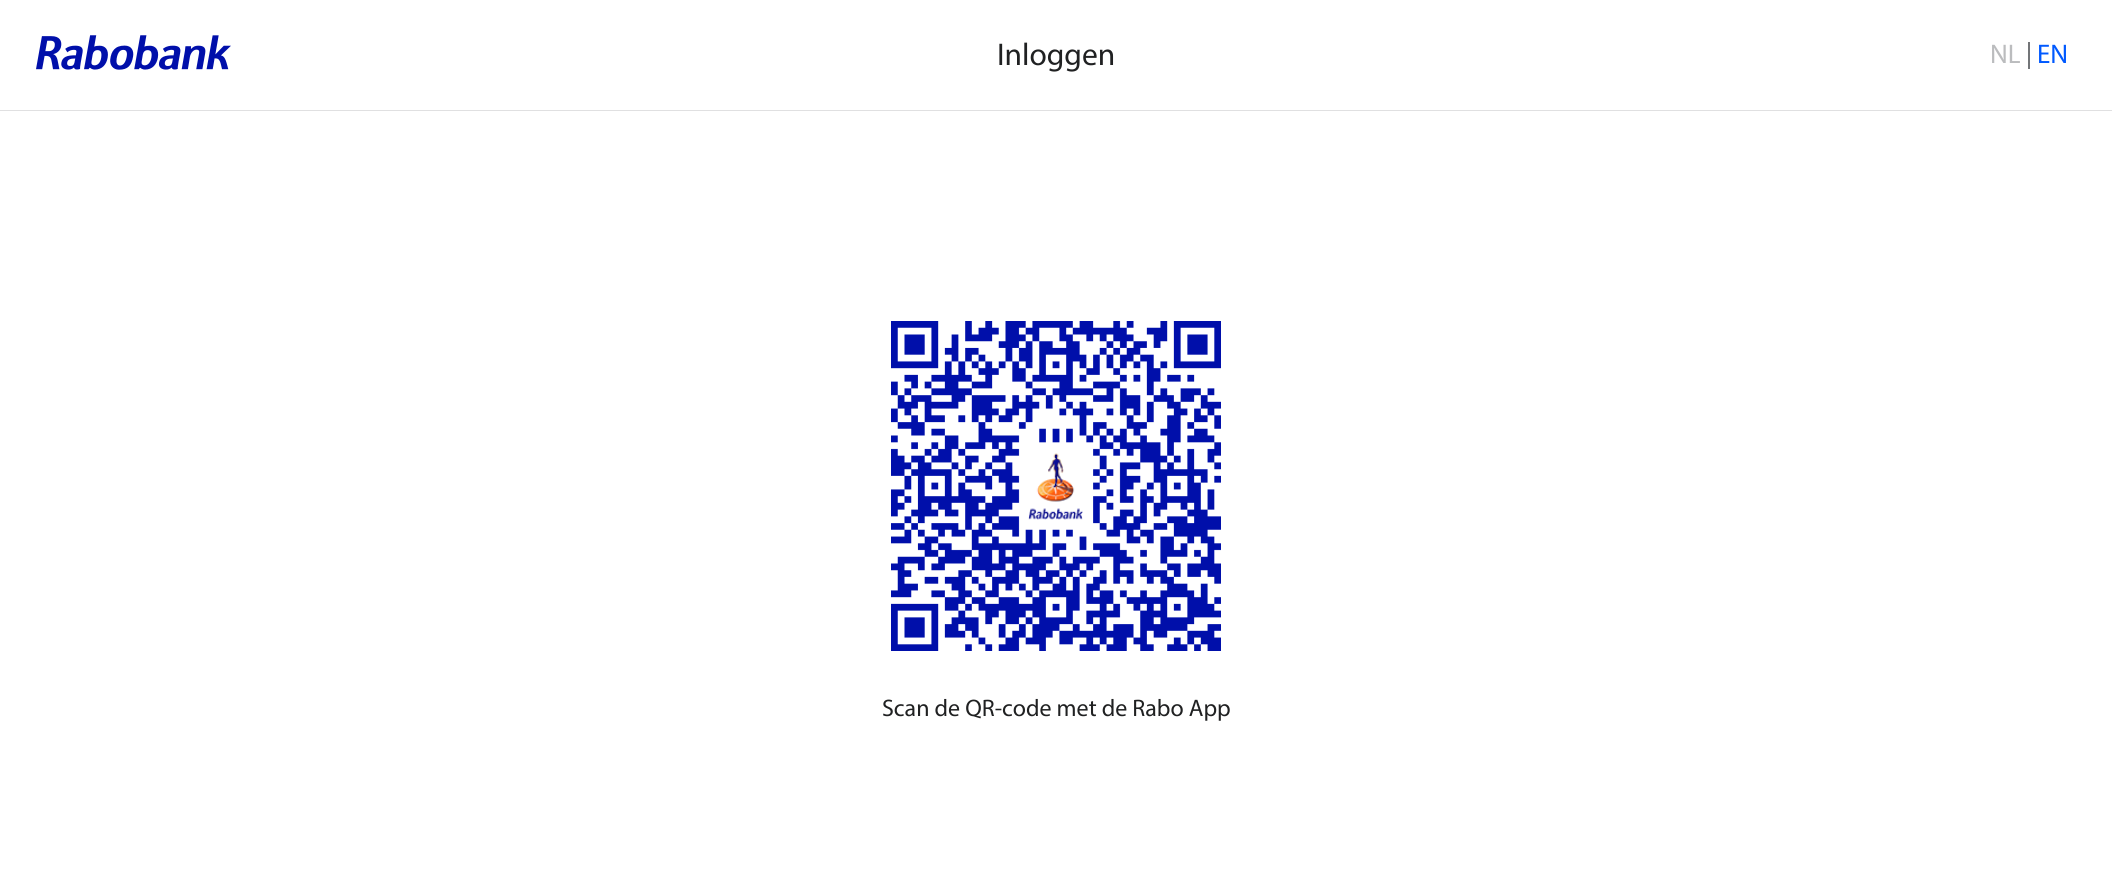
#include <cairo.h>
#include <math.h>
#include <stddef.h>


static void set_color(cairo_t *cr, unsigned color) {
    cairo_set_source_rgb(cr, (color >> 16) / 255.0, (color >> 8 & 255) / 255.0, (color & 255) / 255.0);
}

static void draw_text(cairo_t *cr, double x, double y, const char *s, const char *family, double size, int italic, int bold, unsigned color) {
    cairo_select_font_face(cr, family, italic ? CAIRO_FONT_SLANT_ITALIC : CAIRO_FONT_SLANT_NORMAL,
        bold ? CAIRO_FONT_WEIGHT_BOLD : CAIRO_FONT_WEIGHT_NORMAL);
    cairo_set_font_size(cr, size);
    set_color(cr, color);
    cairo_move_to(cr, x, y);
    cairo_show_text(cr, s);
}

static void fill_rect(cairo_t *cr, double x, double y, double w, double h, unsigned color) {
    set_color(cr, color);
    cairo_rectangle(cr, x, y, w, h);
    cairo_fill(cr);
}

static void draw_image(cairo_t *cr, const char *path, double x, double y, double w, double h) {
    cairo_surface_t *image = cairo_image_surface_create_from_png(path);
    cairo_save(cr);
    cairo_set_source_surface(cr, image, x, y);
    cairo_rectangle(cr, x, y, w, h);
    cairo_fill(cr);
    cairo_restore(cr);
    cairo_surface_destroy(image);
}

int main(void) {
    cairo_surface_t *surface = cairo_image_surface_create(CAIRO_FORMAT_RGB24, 2112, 889);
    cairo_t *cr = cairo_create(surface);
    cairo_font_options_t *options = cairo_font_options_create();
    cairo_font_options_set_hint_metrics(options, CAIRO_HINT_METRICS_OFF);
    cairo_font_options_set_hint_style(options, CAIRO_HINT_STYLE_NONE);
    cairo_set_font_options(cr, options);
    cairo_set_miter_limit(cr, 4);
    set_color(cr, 0xFFFFFF);
    cairo_paint(cr);
    fill_rect(cr, 0, 110, 2112, 1, 0xE0E0E1);
    draw_image(cr, "assets/img1.png", 36, 35, 195, 35);
    draw_text(cr, 997, 65, "Inloggen", "Myriad", 31.5, 0, 0, 0x202122);
    draw_text(cr, 1990, 63, "NL", "Myriad", 27, 0, 0, 0xBBBCBE);
    fill_rect(cr, 2028, 42, 2, 27, 0x737578);
    draw_text(cr, 2037, 63, "EN", "Myriad", 27, 0, 0, 0x0059FF);
    draw_image(cr, "assets/img2.png", 891, 321, 330, 330);
    draw_text(cr, 882, 716, "Scan de QR-code met de Rabo App", "Myriad", 24, 0, 0, 0x202122);
    cairo_surface_write_to_png(surface, "output.png");
    cairo_font_options_destroy(options);
    cairo_destroy(cr);
    cairo_surface_destroy(surface);
    return 0;
}
